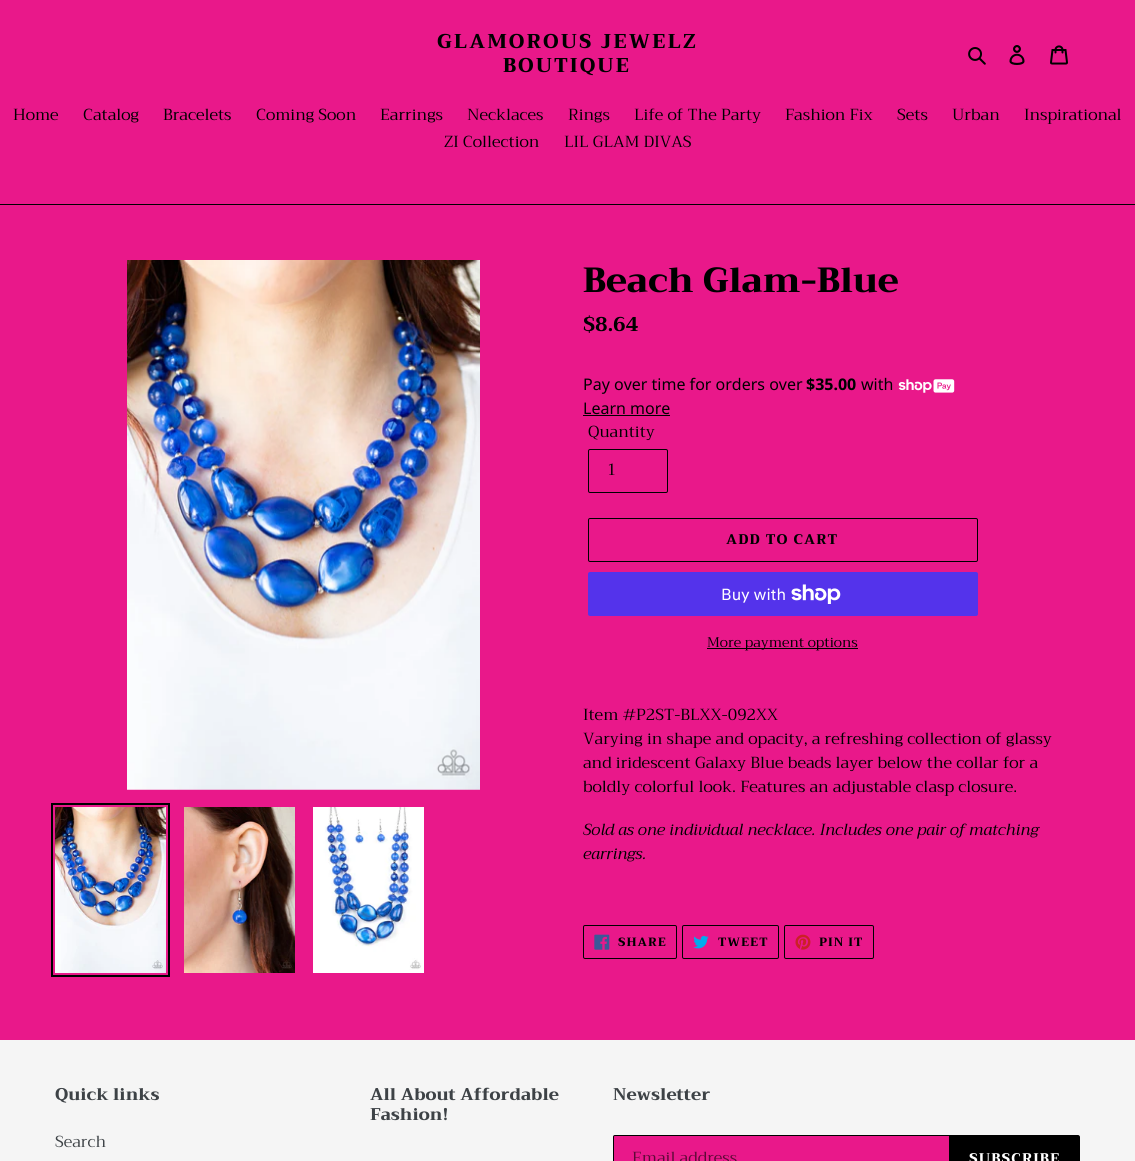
#include <cairo.h>
#include <math.h>
#include <stddef.h>


static void set_color(cairo_t *cr, unsigned color) {
    cairo_set_source_rgb(cr, (color >> 16) / 255.0, (color >> 8 & 255) / 255.0, (color & 255) / 255.0);
}

static void draw_text(cairo_t *cr, double x, double y, const char *s, const char *family, double size, int italic, int bold, unsigned color) {
    cairo_select_font_face(cr, family, italic ? CAIRO_FONT_SLANT_ITALIC : CAIRO_FONT_SLANT_NORMAL,
        bold ? CAIRO_FONT_WEIGHT_BOLD : CAIRO_FONT_WEIGHT_NORMAL);
    cairo_set_font_size(cr, size);
    set_color(cr, color);
    cairo_move_to(cr, x, y);
    cairo_show_text(cr, s);
}

static void draw_spaced(cairo_t *cr, double x, double y, const char *s, double letter, double word) {
    cairo_move_to(cr, x, y);
    while (*s) {
        char ch[5] = {0};
        int n = 0;
        do ch[n++] = *s++; while ((*s & 0xC0) == 0x80);
        cairo_show_text(cr, ch);
        cairo_rel_move_to(cr, letter + word * (*ch == ' '), 0);
    }
}

static void fill_rect(cairo_t *cr, double x, double y, double w, double h, unsigned color) {
    set_color(cr, color);
    cairo_rectangle(cr, x, y, w, h);
    cairo_fill(cr);
}

static void rounded_rect(cairo_t *cr, double x, double y, double w, double h, double r) {
    cairo_new_sub_path(cr);
    cairo_arc(cr, x + w - r, y + h - r, r, 0, M_PI / 2);
    cairo_arc(cr, x + r, y + h - r, r, M_PI / 2, M_PI);
    cairo_arc(cr, x + r, y + r, r, M_PI, 1.5 * M_PI);
    cairo_arc(cr, x + w - r, y + r, r, 1.5 * M_PI, 2 * M_PI);
    cairo_close_path(cr);
}

static void draw_image(cairo_t *cr, const char *path, double x, double y, double w, double h) {
    cairo_surface_t *image = cairo_image_surface_create_from_png(path);
    cairo_save(cr);
    cairo_set_source_surface(cr, image, x, y);
    cairo_rectangle(cr, x, y, w, h);
    cairo_fill(cr);
    cairo_restore(cr);
    cairo_surface_destroy(image);
}

int main(void) {
    cairo_surface_t *surface = cairo_image_surface_create(CAIRO_FORMAT_RGB24, 1135, 1161);
    cairo_t *cr = cairo_create(surface);
    cairo_font_options_t *options = cairo_font_options_create();
    cairo_font_options_set_hint_metrics(options, CAIRO_HINT_METRICS_OFF);
    cairo_font_options_set_hint_style(options, CAIRO_HINT_STYLE_NONE);
    cairo_set_font_options(cr, options);
    cairo_set_miter_limit(cr, 4);
    set_color(cr, 0xE9188A);
    cairo_paint(cr);
    cairo_select_font_face(cr, "Trirong ExtraBold", CAIRO_FONT_SLANT_NORMAL, CAIRO_FONT_WEIGHT_NORMAL);
    cairo_set_font_size(cr, 20);
    set_color(cr, 0x000000);
    draw_spaced(cr, 437, 48, "GLAMOROUS JEWELZ", 2, 0);
    draw_spaced(cr, 503, 72, "BOUTIQUE", 2, 0);
    draw_image(cr, "assets/img1.png", 968, 47, 18, 18);
    draw_image(cr, "assets/img2.png", 1009, 45, 16, 20);
    draw_image(cr, "assets/img3.png", 1050, 45, 18, 20);
    fill_rect(cr, 0, 204, 1135, 1, 0x000000);
    draw_text(cr, 13, 120, "Home", "Trirong", 16, 0, 0, 0x000000);
    draw_text(cr, 83, 120, "Catalog", "Trirong", 16, 0, 0, 0x000000);
    draw_text(cr, 163, 120, "Bracelets", "Trirong", 16, 0, 0, 0x000000);
    draw_text(cr, 256, 120, "Coming Soon", "Trirong", 16, 0, 0, 0x000000);
    draw_text(cr, 380, 120, "Earrings", "Trirong", 16, 0, 0, 0x000000);
    draw_text(cr, 467, 120, "Necklaces", "Trirong", 16, 0, 0, 0x000000);
    draw_text(cr, 568, 120, "Rings", "Trirong", 16, 0, 0, 0x000000);
    draw_text(cr, 634, 120, "Life of The Party", "Trirong", 16, 0, 0, 0x000000);
    draw_text(cr, 785, 120, "Fashion Fix", "Trirong", 16, 0, 0, 0x000000);
    draw_text(cr, 897, 120, "Sets", "Trirong", 16, 0, 0, 0x000000);
    draw_text(cr, 952, 120, "Urban", "Trirong", 16, 0, 0, 0x000000);
    draw_text(cr, 1024, 120, "Inspirational", "Trirong", 16, 0, 0, 0x000000);
    draw_text(cr, 444, 147, "ZI Collection", "Trirong", 16, 0, 0, 0x000000);
    draw_text(cr, 564, 147, "LIL GLAM DIVAS", "Trirong", 16, 0, 0, 0x000000);
    draw_image(cr, "assets/img4.png", 127, 260, 353, 530);
    cairo_rectangle(cr, 52, 804, 117, 172);
    cairo_stroke(cr);
    draw_image(cr, "assets/img5.png", 55, 807, 111, 166);
    draw_image(cr, "assets/img6.png", 184, 807, 111, 166);
    draw_image(cr, "assets/img7.png", 313, 807, 111, 166);
    draw_text(cr, 583, 292, "Beach Glam-Blue", "Trirong ExtraBold", 35, 0, 0, 0x000000);
    draw_text(cr, 583, 331, "$8.64", "Trirong", 20, 0, 1, 0x000000);
    draw_text(cr, 583, 390, "Pay over time for orders over", "Noto Sans", 16, 0, 0, 0x000000);
    draw_text(cr, 806, 390, "$35.00", "Noto Sans", 16, 0, 1, 0x000000);
    draw_text(cr, 861, 390, "with", "Noto Sans", 16, 0, 0, 0x000000);
    draw_image(cr, "assets/img8.png", 898, 379, 57, 14);
    draw_text(cr, 583, 414, "Learn more", "Noto Sans", 16, 0, 0, 0x000000);
    fill_rect(cr, 583, 415, 87, 1, 0x000000);
    draw_text(cr, 588, 437, "Quantity", "Trirong", 16, 0, 0, 0x000000);
    rounded_rect(cr, 588.5, 449.5, 79, 43, 1.5);
    cairo_set_line_width(cr, 1);
    cairo_stroke(cr);
    draw_text(cr, 607, 475, "1", "Trirong", 16, 0, 0, 0x000000);
    rounded_rect(cr, 588.5, 518.5, 389, 43, 1.5);
    cairo_stroke(cr);
    cairo_select_font_face(cr, "Trirong ExtraBold", CAIRO_FONT_SLANT_NORMAL, CAIRO_FONT_WEIGHT_NORMAL);
    cairo_set_font_size(cr, 14);
    draw_spaced(cr, 726, 544, "ADD TO CART", 1.1, 0);
    set_color(cr, 0x5433EB);
    rounded_rect(cr, 588, 572, 390, 44, 2);
    cairo_fill(cr);
    draw_text(cr, 721, 600, "Buy with", "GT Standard", 16, 0, 0, 0xFFFFFF);
    draw_image(cr, "assets/img9.png", 791, 584, 50, 20);
    fill_rect(cr, 707, 648, 151, 1, 0x000000);
    draw_text(cr, 707, 647, "More payment options", "Trirong", 14, 0, 0, 0x000000);
    draw_text(cr, 583, 720, "Item #P2ST-BLXX-092XX", "Trirong", 16, 0, 0, 0x000000);
    draw_text(cr, 583, 744, "Varying in shape and opacity, a refreshing collection of glassy", "Trirong", 16, 0, 0, 0x000000);
    draw_text(cr, 583, 768, "and iridescent Galaxy Blue beads layer below the collar for a", "Trirong", 16, 0, 0, 0x000000);
    draw_text(cr, 583, 792, "boldly colorful look. Features an adjustable clasp closure.", "Trirong", 16, 0, 0, 0x000000);
    draw_text(cr, 583, 835, "Sold as one individual necklace. Includes one pair of matching", "Trirong", 16, 1, 0, 0x000000);
    draw_text(cr, 583, 859, "earrings.", "Trirong", 16, 1, 0, 0x000000);
    rounded_rect(cr, 583.5, 925.5, 93, 33, 1.5);
    cairo_stroke(cr);
    draw_image(cr, "assets/img10.png", 594, 934, 16, 16);
    cairo_select_font_face(cr, "Trirong ExtraBold", CAIRO_FONT_SLANT_NORMAL, CAIRO_FONT_WEIGHT_NORMAL);
    cairo_set_font_size(cr, 12);
    draw_spaced(cr, 618, 946, "SHARE", 1, 0);
    rounded_rect(cr, 682.5, 925.5, 96, 33, 1.5);
    cairo_stroke(cr);
    draw_image(cr, "assets/img11.png", 693, 935, 16, 14);
    draw_spaced(cr, 718, 946, "TWEET", 1, 0);
    rounded_rect(cr, 784.5, 925.5, 89, 33, 1.5);
    cairo_stroke(cr);
    draw_image(cr, "assets/img12.png", 795, 934, 16, 16);
    draw_spaced(cr, 819, 946, "PIN IT", 1, 0);
    fill_rect(cr, 0, 1040, 1135, 121, 0xF5F5F5);
    draw_text(cr, 55, 1100, "Quick links", "Trirong ExtraBold", 17, 0, 0, 0x3D4246);
    draw_text(cr, 55, 1147, "Search", "Trirong", 16, 0, 0, 0x3D4246);
    draw_text(cr, 370, 1100, "All About Affordable", "Trirong ExtraBold", 17, 0, 0, 0x3D4246);
    draw_text(cr, 370, 1120, "Fashion!", "Trirong ExtraBold", 17, 0, 0, 0x3D4246);
    draw_text(cr, 613, 1100, "Newsletter", "Trirong ExtraBold", 17, 0, 0, 0x3D4246);
    set_color(cr, 0xE9188A);
    cairo_new_path(cr);
    cairo_move_to(cr, 615, 1135.5);
    cairo_line_to(cr, 949.5, 1135.5);
    cairo_line_to(cr, 949.5, 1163.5);
    cairo_line_to(cr, 615, 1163.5);
    cairo_curve_to(cr, 614, 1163.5, 613.5, 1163, 613.5, 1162);
    cairo_line_to(cr, 613.5, 1137);
    cairo_curve_to(cr, 613.5, 1136, 614, 1135.5, 615, 1135.5);
    cairo_close_path(cr);
    cairo_fill_preserve(cr);
    set_color(cr, 0x000000);
    cairo_stroke(cr);
    draw_text(cr, 632, 1163, "Email address", "Trirong", 16, 0, 0, 0x5D0A37);
    set_color(cr, 0x000000);
    cairo_new_path(cr);
    cairo_move_to(cr, 950, 1135);
    cairo_line_to(cr, 1078, 1135);
    cairo_curve_to(cr, 1079, 1135, 1080, 1136, 1080, 1137);
    cairo_line_to(cr, 1080, 1161);
    cairo_curve_to(cr, 1080, 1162, 1079, 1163, 1078, 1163);
    cairo_line_to(cr, 950, 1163);
    cairo_close_path(cr);
    cairo_fill(cr);
    cairo_select_font_face(cr, "Trirong ExtraBold", CAIRO_FONT_SLANT_NORMAL, CAIRO_FONT_WEIGHT_NORMAL);
    cairo_set_font_size(cr, 14);
    set_color(cr, 0xFFFFFF);
    draw_spaced(cr, 969, 1163, "SUBSCRIBE", 1.1, 0);
    cairo_surface_write_to_png(surface, "output.png");
    cairo_font_options_destroy(options);
    cairo_destroy(cr);
    cairo_surface_destroy(surface);
    return 0;
}
